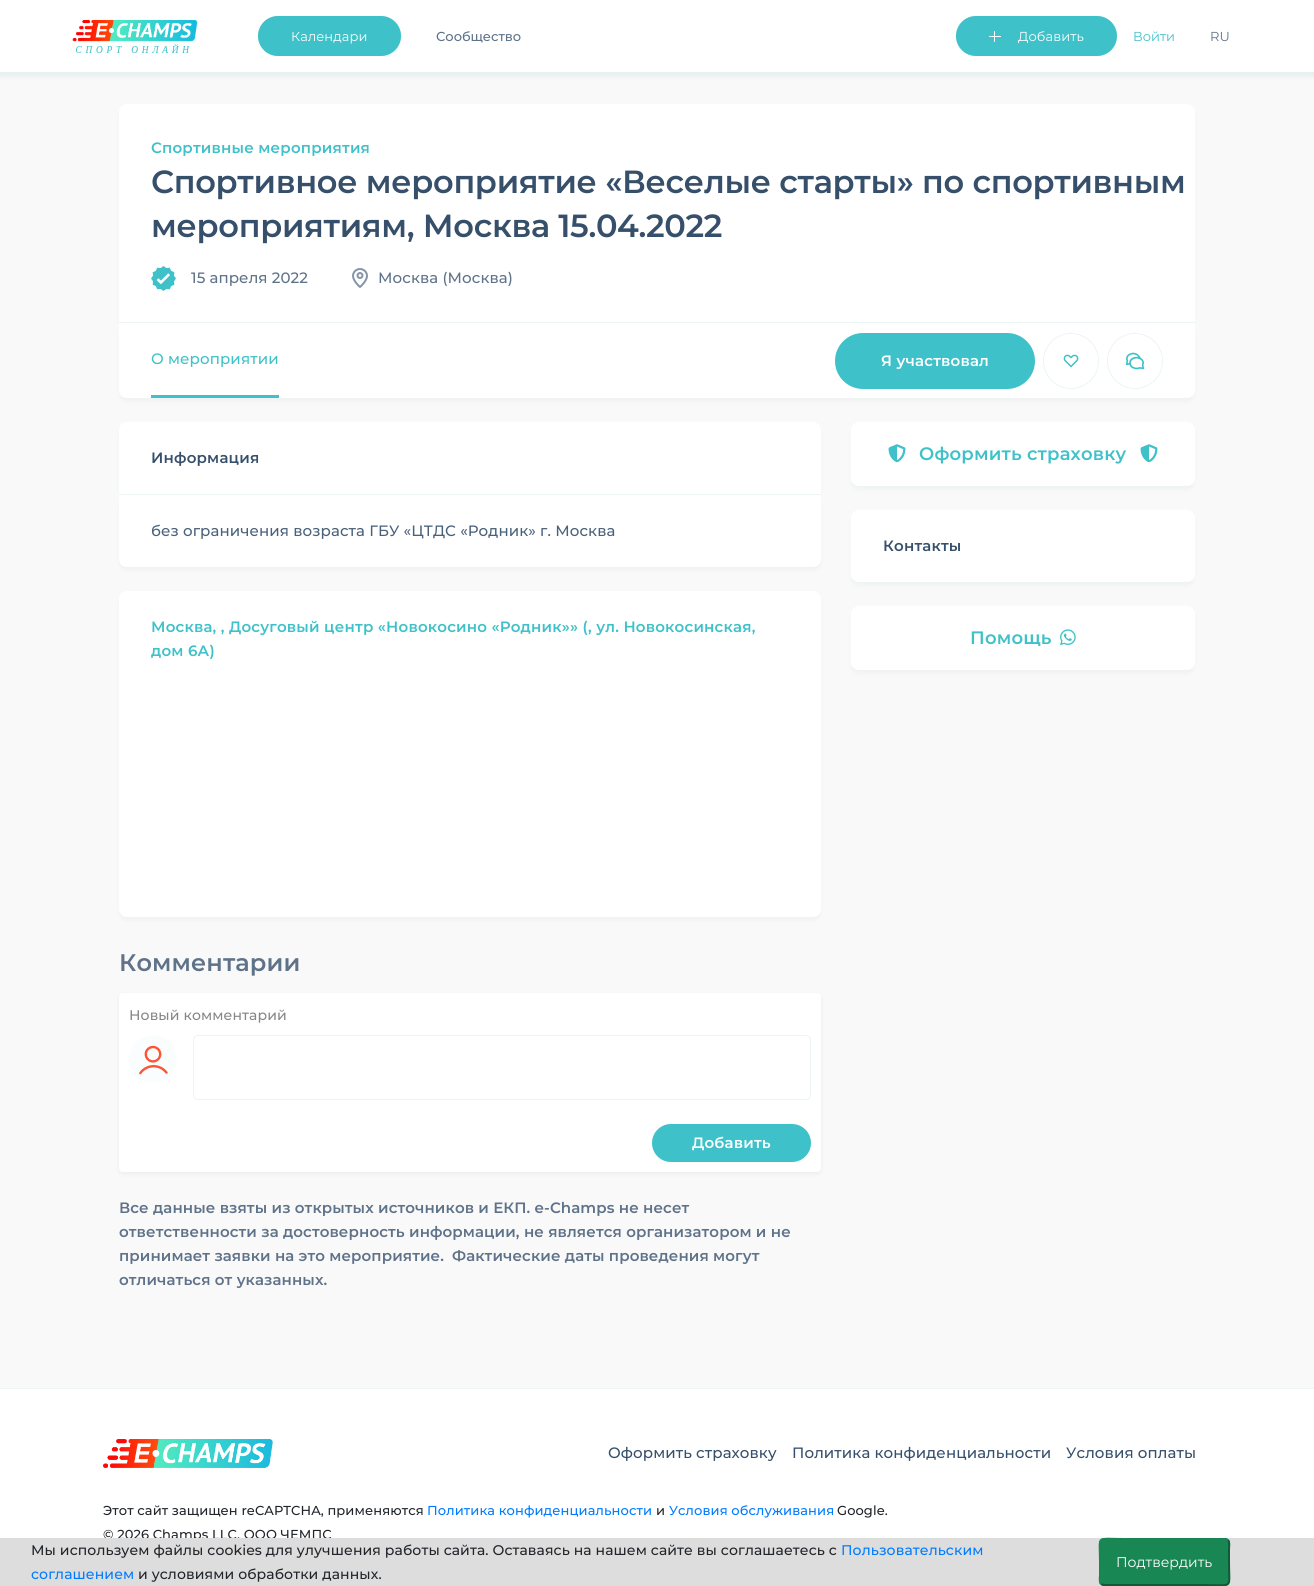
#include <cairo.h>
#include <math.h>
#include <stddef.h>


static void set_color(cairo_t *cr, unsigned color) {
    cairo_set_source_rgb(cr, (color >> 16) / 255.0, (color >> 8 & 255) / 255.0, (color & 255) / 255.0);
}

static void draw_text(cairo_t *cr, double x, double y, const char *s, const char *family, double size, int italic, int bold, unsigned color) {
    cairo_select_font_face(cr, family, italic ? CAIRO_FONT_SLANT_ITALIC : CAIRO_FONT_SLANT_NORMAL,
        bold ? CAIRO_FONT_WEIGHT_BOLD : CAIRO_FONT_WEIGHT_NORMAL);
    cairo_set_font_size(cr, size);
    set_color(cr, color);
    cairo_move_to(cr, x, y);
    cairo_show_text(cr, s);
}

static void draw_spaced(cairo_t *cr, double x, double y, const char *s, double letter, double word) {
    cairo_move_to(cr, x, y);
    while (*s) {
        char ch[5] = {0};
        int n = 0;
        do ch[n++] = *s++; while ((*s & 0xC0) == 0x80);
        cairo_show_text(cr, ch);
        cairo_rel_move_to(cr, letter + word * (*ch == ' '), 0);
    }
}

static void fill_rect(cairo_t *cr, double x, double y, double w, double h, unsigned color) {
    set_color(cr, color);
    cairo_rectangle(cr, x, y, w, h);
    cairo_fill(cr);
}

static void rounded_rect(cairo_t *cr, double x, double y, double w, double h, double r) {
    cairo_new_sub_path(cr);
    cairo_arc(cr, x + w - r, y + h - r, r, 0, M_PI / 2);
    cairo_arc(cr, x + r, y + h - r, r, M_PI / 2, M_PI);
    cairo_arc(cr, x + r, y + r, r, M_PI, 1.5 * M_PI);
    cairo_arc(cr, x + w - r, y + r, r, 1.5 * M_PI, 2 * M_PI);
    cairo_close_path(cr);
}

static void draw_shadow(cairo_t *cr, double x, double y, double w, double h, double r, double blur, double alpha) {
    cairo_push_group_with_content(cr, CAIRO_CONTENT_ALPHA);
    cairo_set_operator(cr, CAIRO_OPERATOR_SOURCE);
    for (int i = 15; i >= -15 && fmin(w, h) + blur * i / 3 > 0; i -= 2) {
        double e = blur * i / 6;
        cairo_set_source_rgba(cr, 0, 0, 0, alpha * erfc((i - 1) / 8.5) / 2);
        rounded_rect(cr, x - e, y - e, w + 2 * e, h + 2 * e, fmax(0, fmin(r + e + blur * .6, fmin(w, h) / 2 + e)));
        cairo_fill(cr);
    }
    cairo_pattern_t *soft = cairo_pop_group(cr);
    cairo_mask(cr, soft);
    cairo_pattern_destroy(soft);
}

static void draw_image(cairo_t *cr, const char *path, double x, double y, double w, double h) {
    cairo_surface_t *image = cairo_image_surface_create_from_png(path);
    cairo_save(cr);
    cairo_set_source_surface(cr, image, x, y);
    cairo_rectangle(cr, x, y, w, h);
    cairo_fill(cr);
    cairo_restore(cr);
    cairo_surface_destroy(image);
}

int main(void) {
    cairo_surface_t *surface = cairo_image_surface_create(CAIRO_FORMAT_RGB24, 1314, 1586);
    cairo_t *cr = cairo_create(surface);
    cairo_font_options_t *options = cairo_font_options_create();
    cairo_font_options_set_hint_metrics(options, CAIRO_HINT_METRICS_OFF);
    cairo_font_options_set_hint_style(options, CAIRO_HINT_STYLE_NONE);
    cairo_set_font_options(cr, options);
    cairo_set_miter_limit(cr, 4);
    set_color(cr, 0xFAF9F9);
    cairo_paint(cr);
    set_color(cr, 0x458E9D);
    draw_shadow(cr, -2, 1, 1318, 76, 0, 2.5, 0.1);
    fill_rect(cr, 0, 0, 1314, 72, 0xFFFFFF);
    draw_image(cr, "assets/img1.png", 72, 20, 126, 33);
    set_color(cr, 0x3FC1C9);
    rounded_rect(cr, 258, 16, 143, 40, 20);
    cairo_fill(cr);
    rounded_rect(cr, 258.5, 16.5, 142, 39, 19.5);
    cairo_set_source_rgba(cr, 0.247, 0.757, 0.788, 0.3);
    cairo_set_line_width(cr, 1);
    cairo_stroke(cr);
    cairo_select_font_face(cr, "Montserrat", CAIRO_FONT_SLANT_NORMAL, CAIRO_FONT_WEIGHT_NORMAL);
    cairo_set_font_size(cr, 13);
    set_color(cr, 0xFFFFFF);
    draw_spaced(cr, 291, 41, "Календари", 0.1, 0);
    draw_text(cr, 436, 41, "Сообщество", "Montserrat Medium", 13, 0, 0, 0x5E7289);
    set_color(cr, 0x3FC1C9);
    rounded_rect(cr, 956, 16, 161, 40, 20);
    cairo_fill(cr);
    rounded_rect(cr, 956.5, 16.5, 160, 39, 19.5);
    cairo_set_source_rgba(cr, 0.247, 0.757, 0.788, 0.3);
    cairo_stroke(cr);
    set_color(cr, 0xFFFFFF);
    rounded_rect(cr, 994, 31, 1, 11, 0.5);
    cairo_fill(cr);
    cairo_select_font_face(cr, "Montserrat", CAIRO_FONT_SLANT_NORMAL, CAIRO_FONT_WEIGHT_NORMAL);
    draw_spaced(cr, 1018, 41, "Добавить", 0.1, 0);
    rounded_rect(cr, 989, 36, 12, 1, 0.5);
    cairo_fill(cr);
    draw_text(cr, 1133, 41, "Войти", "Montserrat", 13, 0, 0, 0x3FC1C9);
    draw_text(cr, 1210, 41, "RU", "Montserrat", 13, 0, 0, 0x5E7289);
    set_color(cr, 0x458E9D);
    draw_shadow(cr, 119, 108, 1076, 219, 8, 2, 0.06);
    set_color(cr, 0xFFFFFF);
    cairo_new_path(cr);
    cairo_move_to(cr, 127, 104);
    cairo_line_to(cr, 1187, 104);
    cairo_curve_to(cr, 1191.5, 104, 1195, 107.5, 1195, 112);
    cairo_line_to(cr, 1195, 323);
    cairo_line_to(cr, 119, 323);
    cairo_line_to(cr, 119, 112);
    cairo_curve_to(cr, 119, 107.5, 122.5, 104, 127, 104);
    cairo_close_path(cr);
    cairo_fill(cr);
    fill_rect(cr, 119, 322, 1076, 1, 0xECF4F5);
    cairo_select_font_face(cr, "Montserrat SemiBold", CAIRO_FONT_SLANT_NORMAL, CAIRO_FONT_WEIGHT_NORMAL);
    cairo_set_font_size(cr, 15);
    set_color(cr, 0x3FC1C9);
    draw_spaced(cr, 151, 153, "Спортивные мероприятия", 0.2, 0);
    cairo_set_font_size(cr, 32);
    set_color(cr, 0x364F6B);
    draw_spaced(cr, 151, 193, "Спортивное мероприятие «Веселые старты» по спортивным", -0.32, 0);
    draw_spaced(cr, 151, 237, "мероприятиям, Москва 15.04.2022", -0.32, 0);
    draw_image(cr, "assets/img2.png", 151, 266, 25, 25);
    cairo_select_font_face(cr, "Montserrat Medium", CAIRO_FONT_SLANT_NORMAL, CAIRO_FONT_WEIGHT_NORMAL);
    cairo_set_font_size(cr, 15);
    set_color(cr, 0x5E7289);
    draw_spaced(cr, 191, 283, "15 апреля 2022", 0.1, 0);
    draw_image(cr, "assets/img3.png", 352, 268, 16, 20);
    draw_spaced(cr, 378, 283, "Москва (Москва)", 0.1, 0);
    set_color(cr, 0x458E9D);
    draw_shadow(cr, 119, 327, 1076, 75, 8, 2, 0.06);
    set_color(cr, 0xFFFFFF);
    cairo_new_path(cr);
    cairo_move_to(cr, 119, 323);
    cairo_line_to(cr, 1195, 323);
    cairo_line_to(cr, 1195, 390);
    cairo_curve_to(cr, 1195, 394.5, 1191.5, 398, 1187, 398);
    cairo_line_to(cr, 127, 398);
    cairo_curve_to(cr, 122.5, 398, 119, 394.5, 119, 390);
    cairo_close_path(cr);
    cairo_fill(cr);
    fill_rect(cr, 151, 395, 128, 3, 0x3FC1C9);
    draw_spaced(cr, 151, 364, "О мероприятии", 0.1, 0);
    rounded_rect(cr, 835, 333, 200, 56, 28);
    cairo_fill(cr);
    cairo_select_font_face(cr, "Montserrat SemiBold", CAIRO_FONT_SLANT_NORMAL, CAIRO_FONT_WEIGHT_NORMAL);
    set_color(cr, 0xFFFFFF);
    draw_spaced(cr, 881, 366, "Я участвовал", 0.2, 0);
    draw_image(cr, "assets/img4.png", 1063, 354, 16, 14);
    cairo_arc(cr, 1071, 361, 27.5, 0, 2 * M_PI);
    set_color(cr, 0xECF4F5);
    cairo_stroke(cr);
    draw_image(cr, "assets/img5.png", 1125, 352, 20, 18);
    cairo_arc(cr, 1135, 361, 27.5, 0, 2 * M_PI);
    cairo_stroke(cr);
    set_color(cr, 0x458E9D);
    draw_shadow(cr, 119, 426, 702, 73, 8, 2, 0.06);
    set_color(cr, 0xFFFFFF);
    cairo_new_path(cr);
    cairo_move_to(cr, 127, 422);
    cairo_line_to(cr, 813, 422);
    cairo_curve_to(cr, 817.5, 422, 821, 425.5, 821, 430);
    cairo_line_to(cr, 821, 495);
    cairo_line_to(cr, 119, 495);
    cairo_line_to(cr, 119, 430);
    cairo_curve_to(cr, 119, 425.5, 122.5, 422, 127, 422);
    cairo_close_path(cr);
    cairo_fill(cr);
    fill_rect(cr, 119, 494, 702, 1, 0xECF4F5);
    set_color(cr, 0x364F6B);
    draw_spaced(cr, 151, 463, "Информация", 0.2, 0);
    set_color(cr, 0x458E9D);
    draw_shadow(cr, 119, 499, 702, 72, 8, 2, 0.06);
    set_color(cr, 0xFFFFFF);
    cairo_new_path(cr);
    cairo_move_to(cr, 119, 495);
    cairo_line_to(cr, 821, 495);
    cairo_line_to(cr, 821, 559);
    cairo_curve_to(cr, 821, 563.5, 817.5, 567, 813, 567);
    cairo_line_to(cr, 127, 567);
    cairo_curve_to(cr, 122.5, 567, 119, 563.5, 119, 559);
    cairo_close_path(cr);
    cairo_fill(cr);
    cairo_select_font_face(cr, "Montserrat Medium", CAIRO_FONT_SLANT_NORMAL, CAIRO_FONT_WEIGHT_NORMAL);
    set_color(cr, 0x4A617A);
    draw_spaced(cr, 151, 536, "без ограничения возраста ГБУ «ЦТДС «Родник» г. Москва", 0.1, 0);
    set_color(cr, 0x458E9D);
    draw_shadow(cr, 119, 595, 702, 326, 8, 2, 0.06);
    set_color(cr, 0xFFFFFF);
    rounded_rect(cr, 119, 591, 702, 326, 8);
    cairo_fill(cr);
    cairo_select_font_face(cr, "Montserrat SemiBold", CAIRO_FONT_SLANT_NORMAL, CAIRO_FONT_WEIGHT_NORMAL);
    set_color(cr, 0x3FC1C9);
    draw_spaced(cr, 151, 632, "Москва, , Досуговый центр «Новокосино «Родник»» (, ул. Новокосинская,", 0.2, 0);
    draw_spaced(cr, 151, 656, "дом 6А)", 0.2, 0);
    cairo_set_font_size(cr, 24);
    set_color(cr, 0x5E7289);
    draw_spaced(cr, 119, 971, "Комментарии", 0.1, 0);
    set_color(cr, 0x000000);
    draw_shadow(cr, 119, 995, 702, 179, 4, 2, 0.05);
    set_color(cr, 0xFFFFFF);
    rounded_rect(cr, 119, 993, 702, 179, 4);
    cairo_fill(cr);
    cairo_select_font_face(cr, "Montserrat Medium", CAIRO_FONT_SLANT_NORMAL, CAIRO_FONT_WEIGHT_NORMAL);
    cairo_set_font_size(cr, 14);
    set_color(cr, 0x878787);
    draw_spaced(cr, 129, 1020, "Новый комментарий", 0.1, 0);
    draw_image(cr, "assets/img6.png", 129, 1035, 48, 48);
    rounded_rect(cr, 193.5, 1035.5, 617, 64, 4.5);
    set_color(cr, 0xECF4F5);
    cairo_stroke(cr);
    set_color(cr, 0x3FC1C9);
    rounded_rect(cr, 652, 1124, 159, 38, 19);
    cairo_fill(cr);
    cairo_select_font_face(cr, "Montserrat SemiBold", CAIRO_FONT_SLANT_NORMAL, CAIRO_FONT_WEIGHT_NORMAL);
    cairo_set_font_size(cr, 15);
    set_color(cr, 0xFFFFFF);
    draw_spaced(cr, 692, 1148, "Добавить", 0.2, 0);
    set_color(cr, 0x5E7289);
    draw_spaced(cr, 119, 1213, "Все данные взяты из открытых источников и ЕКП. e-Champs не несет", 0.1, 0);
    draw_spaced(cr, 119, 1237, "ответственности за достоверность информации, не является организатором и не", 0.1, 0);
    draw_spaced(cr, 119, 1261, "принимает заявки на это мероприятие.", 0.1, 0);
    draw_spaced(cr, 452, 1261, "Фактические даты проведения могут", 0.1, 0);
    draw_spaced(cr, 119, 1285, "отличаться от указанных.", 0.1, 0);
    set_color(cr, 0x458E9D);
    draw_shadow(cr, 851, 426, 344, 64, 8, 2, 0.06);
    set_color(cr, 0xFFFFFF);
    rounded_rect(cr, 851, 422, 344, 64, 8);
    cairo_fill(cr);
    draw_image(cr, "assets/img7.png", 888, 444, 18, 19);
    cairo_set_font_size(cr, 18);
    set_color(cr, 0x3FC1C9);
    draw_spaced(cr, 919, 460, "Оформить страховку", 0.2, 0);
    draw_image(cr, "assets/img7.png", 1140, 444, 18, 19);
    set_color(cr, 0x458E9D);
    draw_shadow(cr, 851, 514, 344, 72, 8, 2, 0.06);
    set_color(cr, 0xFFFFFF);
    rounded_rect(cr, 851, 510, 344, 72, 8);
    cairo_fill(cr);
    cairo_set_font_size(cr, 15);
    set_color(cr, 0x364F6B);
    draw_spaced(cr, 883, 551, "Контакты", 0.2, 0);
    set_color(cr, 0x458E9D);
    draw_shadow(cr, 851, 610, 344, 64, 8, 2, 0.06);
    set_color(cr, 0xFFFFFF);
    rounded_rect(cr, 851, 606, 344, 64, 8);
    cairo_fill(cr);
    cairo_set_font_size(cr, 18);
    set_color(cr, 0x3FC1C9);
    draw_spaced(cr, 970, 644, "Помощь", 0.2, 0);
    draw_image(cr, "assets/img8.png", 1060, 629, 16, 17);
    fill_rect(cr, 0, 1389, 1314, 149, 0xFFFFFF);
    fill_rect(cr, 0, 1388, 1314, 1, 0xECF4F5);
    draw_image(cr, "assets/img9.png", 103, 1439, 170, 29);
    cairo_select_font_face(cr, "Montserrat Medium", CAIRO_FONT_SLANT_NORMAL, CAIRO_FONT_WEIGHT_NORMAL);
    cairo_set_font_size(cr, 15);
    set_color(cr, 0x364F6B);
    draw_spaced(cr, 608, 1458, "Оформить страховку", 0.1, 0);
    draw_spaced(cr, 792, 1458, "Политика конфиденциальности", 0.1, 0);
    draw_spaced(cr, 1066, 1458, "Условия оплаты", 0.1, 0);
    cairo_set_font_size(cr, 13);
    set_color(cr, 0x212529);
    draw_spaced(cr, 103, 1515, "Этот сайт защищен reCAPTCHA, применяются", 0.1, 0);
    set_color(cr, 0x007BFF);
    draw_spaced(cr, 427, 1515, "Политика конфиденциальности", 0.1, 0);
    set_color(cr, 0x212529);
    draw_spaced(cr, 656, 1515, "и", 0.1, 0);
    set_color(cr, 0x007BFF);
    draw_spaced(cr, 669, 1515, "Условия обслуживания", 0.1, 0);
    set_color(cr, 0x212529);
    draw_spaced(cr, 837, 1515, "Google.", 0.1, 0);
    draw_spaced(cr, 103, 1539, "© 2026 Champs LLC, ООО ЧЕМПС", 0.1, 0);
    fill_rect(cr, 0, 1538, 1314, 48, 0xDDDDDD);
    cairo_set_font_size(cr, 14);
    set_color(cr, 0x212529);
    draw_spaced(cr, 31, 1555, "Мы используем файлы cookies для улучшения работы сайта. Оставаясь на нашем сайте вы соглашаетесь с", 0.1, 0);
    set_color(cr, 0x007BFF);
    draw_spaced(cr, 841, 1555, "Пользовательским", 0.1, 0);
    draw_spaced(cr, 31, 1579, "соглашением", 0.1, 0);
    set_color(cr, 0x212529);
    draw_spaced(cr, 138, 1579, "и условиями обработки данных.", 0.1, 0);
    set_color(cr, 0x198754);
    rounded_rect(cr, 1099, 1538, 131, 48, 5);
    cairo_fill(cr);
    cairo_new_path(cr);
    cairo_move_to(cr, 1228, 1540);
    cairo_curve_to(cr, 1230, 1542.5, 1229, 1547, 1229, 1549.5);
    cairo_line_to(cr, 1229, 1562);
    cairo_curve_to(cr, 1229, 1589.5, 1234, 1585, 1205, 1585);
    cairo_line_to(cr, 1104, 1585);
    cairo_line_to(cr, 1101, 1584);
    set_color(cr, 0x115A38);
    cairo_set_line_width(cr, 2);
    cairo_stroke(cr);
    cairo_new_path(cr);
    cairo_move_to(cr, 1101, 1584);
    cairo_curve_to(cr, 1099, 1581.5, 1100, 1577, 1100, 1574.5);
    cairo_line_to(cr, 1100, 1562);
    cairo_curve_to(cr, 1100, 1534.5, 1095, 1539, 1124, 1539);
    cairo_line_to(cr, 1225, 1539);
    cairo_line_to(cr, 1228, 1540);
    set_color(cr, 0x198754);
    cairo_stroke(cr);
    draw_text(cr, 1116, 1567, "Подтвердить", "Montserrat", 14, 0, 0, 0xFFFFFF);
    cairo_surface_write_to_png(surface, "output.png");
    cairo_font_options_destroy(options);
    cairo_destroy(cr);
    cairo_surface_destroy(surface);
    return 0;
}
